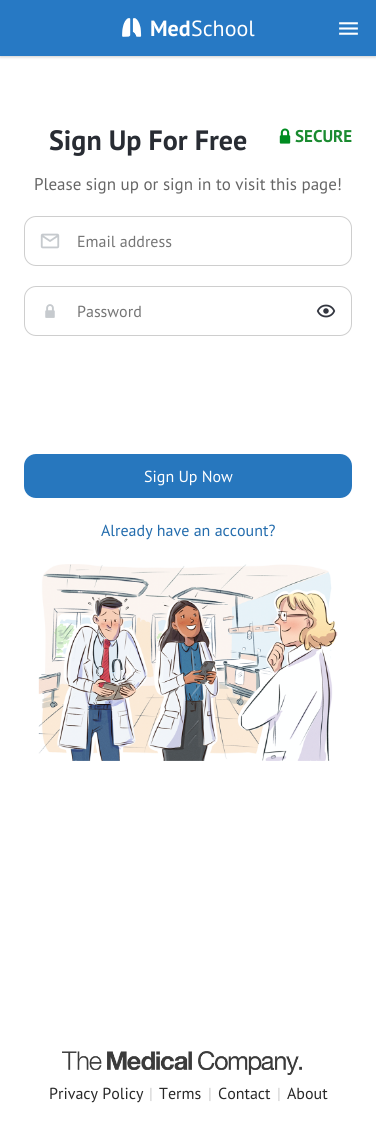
#include <cairo.h>
#include <math.h>
#include <stddef.h>


static void set_color(cairo_t *cr, unsigned color) {
    cairo_set_source_rgb(cr, (color >> 16) / 255.0, (color >> 8 & 255) / 255.0, (color & 255) / 255.0);
}

static void draw_text(cairo_t *cr, double x, double y, const char *s, const char *family, double size, int italic, int bold, unsigned color) {
    cairo_select_font_face(cr, family, italic ? CAIRO_FONT_SLANT_ITALIC : CAIRO_FONT_SLANT_NORMAL,
        bold ? CAIRO_FONT_WEIGHT_BOLD : CAIRO_FONT_WEIGHT_NORMAL);
    cairo_set_font_size(cr, size);
    set_color(cr, color);
    cairo_move_to(cr, x, y);
    cairo_show_text(cr, s);
}

static void fill_rect(cairo_t *cr, double x, double y, double w, double h, unsigned color) {
    set_color(cr, color);
    cairo_rectangle(cr, x, y, w, h);
    cairo_fill(cr);
}

static void rounded_rect(cairo_t *cr, double x, double y, double w, double h, double r) {
    cairo_new_sub_path(cr);
    cairo_arc(cr, x + w - r, y + h - r, r, 0, M_PI / 2);
    cairo_arc(cr, x + r, y + h - r, r, M_PI / 2, M_PI);
    cairo_arc(cr, x + r, y + r, r, M_PI, 1.5 * M_PI);
    cairo_arc(cr, x + w - r, y + r, r, 1.5 * M_PI, 2 * M_PI);
    cairo_close_path(cr);
}

static void draw_shadow(cairo_t *cr, double x, double y, double w, double h, double r, double blur, double alpha) {
    cairo_push_group_with_content(cr, CAIRO_CONTENT_ALPHA);
    cairo_set_operator(cr, CAIRO_OPERATOR_SOURCE);
    for (int i = 15; i >= -15 && fmin(w, h) + blur * i / 3 > 0; i -= 2) {
        double e = blur * i / 6;
        cairo_set_source_rgba(cr, 0, 0, 0, alpha * erfc((i - 1) / 8.5) / 2);
        rounded_rect(cr, x - e, y - e, w + 2 * e, h + 2 * e, fmax(0, fmin(r + e + blur * .6, fmin(w, h) / 2 + e)));
        cairo_fill(cr);
    }
    cairo_pattern_t *soft = cairo_pop_group(cr);
    cairo_mask(cr, soft);
    cairo_pattern_destroy(soft);
}

static void draw_image(cairo_t *cr, const char *path, double x, double y, double w, double h) {
    cairo_surface_t *image = cairo_image_surface_create_from_png(path);
    cairo_save(cr);
    cairo_set_source_surface(cr, image, x, y);
    cairo_rectangle(cr, x, y, w, h);
    cairo_fill(cr);
    cairo_restore(cr);
    cairo_surface_destroy(image);
}

int main(void) {
    cairo_surface_t *surface = cairo_image_surface_create(CAIRO_FORMAT_RGB24, 376, 1132);
    cairo_t *cr = cairo_create(surface);
    cairo_font_options_t *options = cairo_font_options_create();
    cairo_font_options_set_hint_metrics(options, CAIRO_HINT_METRICS_OFF);
    cairo_font_options_set_hint_style(options, CAIRO_HINT_STYLE_NONE);
    cairo_set_font_options(cr, options);
    cairo_set_miter_limit(cr, 4);
    set_color(cr, 0xFFFFFF);
    cairo_paint(cr);
    set_color(cr, 0x000000);
    draw_shadow(cr, 0, 1, 376, 56, 0, 1.5, 0.2);
    fill_rect(cr, 0, 0, 376, 56, 0x2779C4);
    draw_image(cr, "assets/img1.png", 122, 18, 20, 19);
    draw_text(cr, 150, 36, "Med", "PT Sans", 22, 0, 1, 0xFFFFFF);
    draw_text(cr, 191, 36, "School", "PT Sans", 22, 0, 0, 0xFFFFFF);
    draw_image(cr, "assets/img2.png", 339, 22, 19, 13);
    draw_text(cr, 49, 150, "Sign Up For Free", "PT Sans", 28, 0, 1, 0x282C33);
    draw_image(cr, "assets/img3.png", 279, 128, 12, 16);
    draw_text(cr, 295, 142, "SECURE", "PT Sans", 17, 0, 1, 0x1A8B30);
    draw_text(cr, 34, 190, "Please sign up or sign in to visit this page!", "PT Sans", 17, 0, 0, 0x666666);
    rounded_rect(cr, 24.5, 216.5, 327, 49, 11.5);
    set_color(cr, 0xCECECE);
    cairo_set_line_width(cr, 1);
    cairo_stroke(cr);
    draw_image(cr, "assets/img4.png", 40, 233, 20, 16);
    draw_text(cr, 77, 247, "Email address", "PT Sans", 16, 0, 0, 0x757575);
    rounded_rect(cr, 24.5, 286.5, 327, 49, 11.5);
    set_color(cr, 0xCECECE);
    cairo_stroke(cr);
    draw_image(cr, "assets/img5.png", 45, 304, 10, 14);
    draw_text(cr, 77, 317, "Password", "PT Sans", 16, 0, 0, 0x757575);
    draw_image(cr, "assets/img6.png", 316, 304, 20, 14);
    set_color(cr, 0x2777BE);
    rounded_rect(cr, 24, 454, 328, 44, 12);
    cairo_fill(cr);
    draw_text(cr, 144, 482, "Sign Up Now", "PT Sans", 16, 0, 0, 0xFFFFFF);
    draw_text(cr, 101, 536, "Already have an account?", "PT Sans", 16, 0, 0, 0x236CAD);
    draw_image(cr, "assets/img7.png", 38, 564, 300, 197);
    draw_image(cr, "assets/img8.png", 62, 1051, 240, 24);
    draw_text(cr, 49, 1099, "Privacy Policy", "PT Sans", 16, 0, 0, 0x282828);
    draw_text(cr, 149, 1099, "|", "PT Sans", 16, 0, 0, 0xCECECE);
    draw_text(cr, 159, 1099, "Terms", "PT Sans", 16, 0, 0, 0x282828);
    draw_text(cr, 208, 1099, "|", "PT Sans", 16, 0, 0, 0xCECECE);
    draw_text(cr, 218, 1099, "Contact", "PT Sans", 16, 0, 0, 0x282828);
    draw_text(cr, 277, 1099, "|", "PT Sans", 16, 0, 0, 0xCECECE);
    draw_text(cr, 287, 1099, "About", "PT Sans", 16, 0, 0, 0x282828);
    cairo_surface_write_to_png(surface, "output.png");
    cairo_font_options_destroy(options);
    cairo_destroy(cr);
    cairo_surface_destroy(surface);
    return 0;
}
